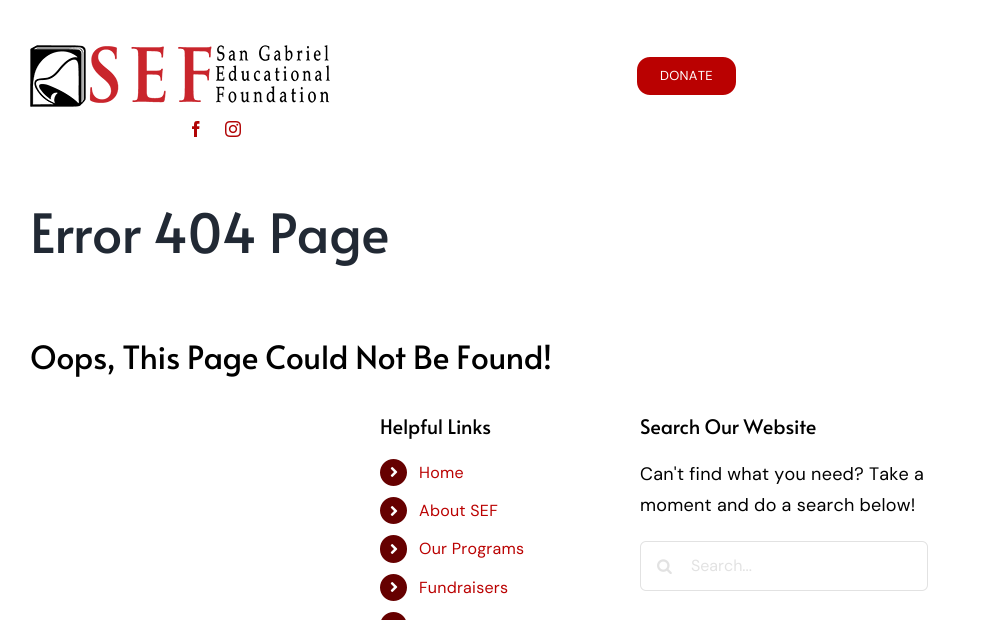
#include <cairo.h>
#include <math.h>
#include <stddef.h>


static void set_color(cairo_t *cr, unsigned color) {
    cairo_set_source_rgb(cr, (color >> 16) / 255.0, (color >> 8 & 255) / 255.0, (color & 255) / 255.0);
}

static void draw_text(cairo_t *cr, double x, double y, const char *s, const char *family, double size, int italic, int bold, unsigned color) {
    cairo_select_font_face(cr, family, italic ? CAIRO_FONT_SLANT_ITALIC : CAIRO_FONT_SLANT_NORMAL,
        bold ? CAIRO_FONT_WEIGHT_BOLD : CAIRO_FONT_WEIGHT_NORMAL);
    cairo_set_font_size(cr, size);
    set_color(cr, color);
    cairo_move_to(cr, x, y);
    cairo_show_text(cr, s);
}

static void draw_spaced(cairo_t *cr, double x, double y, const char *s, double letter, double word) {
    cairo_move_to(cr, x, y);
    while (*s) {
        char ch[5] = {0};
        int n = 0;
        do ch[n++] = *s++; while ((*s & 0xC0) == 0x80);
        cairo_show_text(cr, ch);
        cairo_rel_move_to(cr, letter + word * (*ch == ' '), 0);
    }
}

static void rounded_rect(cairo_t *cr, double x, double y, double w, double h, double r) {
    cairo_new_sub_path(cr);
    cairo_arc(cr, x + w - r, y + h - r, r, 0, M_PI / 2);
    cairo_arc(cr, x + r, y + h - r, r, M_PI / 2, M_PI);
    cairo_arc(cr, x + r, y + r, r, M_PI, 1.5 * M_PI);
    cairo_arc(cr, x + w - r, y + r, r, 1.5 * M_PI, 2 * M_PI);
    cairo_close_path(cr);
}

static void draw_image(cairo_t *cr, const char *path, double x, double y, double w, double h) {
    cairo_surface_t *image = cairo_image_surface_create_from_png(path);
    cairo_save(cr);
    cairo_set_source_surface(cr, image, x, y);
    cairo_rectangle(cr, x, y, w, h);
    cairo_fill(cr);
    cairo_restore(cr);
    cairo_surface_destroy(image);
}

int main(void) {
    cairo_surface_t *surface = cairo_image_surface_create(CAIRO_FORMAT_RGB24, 983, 620);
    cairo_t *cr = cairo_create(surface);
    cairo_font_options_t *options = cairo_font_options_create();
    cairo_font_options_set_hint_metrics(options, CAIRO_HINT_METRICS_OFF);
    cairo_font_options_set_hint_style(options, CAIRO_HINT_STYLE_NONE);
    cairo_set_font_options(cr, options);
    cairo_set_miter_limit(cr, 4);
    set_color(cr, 0xFFFFFF);
    cairo_paint(cr);
    draw_image(cr, "assets/img1.png", 30, 45, 300, 62);
    set_color(cr, 0xBA0101);
    rounded_rect(cr, 637, 57, 99, 38, 13);
    cairo_fill(cr);
    cairo_select_font_face(cr, "DM Sans", CAIRO_FONT_SLANT_NORMAL, CAIRO_FONT_WEIGHT_NORMAL);
    cairo_set_font_size(cr, 13);
    set_color(cr, 0xFFFFFF);
    draw_spaced(cr, 660, 80, "DONATE", 0.25, 0);
    draw_image(cr, "assets/img2.png", 192, 121, 8, 16);
    draw_image(cr, "assets/img3.png", 225, 121, 16, 16);
    cairo_select_font_face(cr, "Alata", CAIRO_FONT_SLANT_NORMAL, CAIRO_FONT_WEIGHT_NORMAL);
    cairo_set_font_size(cr, 54);
    set_color(cr, 0x212934);
    draw_spaced(cr, 30, 253, "Error 404 Page", -0.75, 0);
    cairo_set_font_size(cr, 32);
    set_color(cr, 0x000000);
    draw_spaced(cr, 30, 369, "Oops, This Page Could Not Be Found!", -0.5, 0);
    cairo_set_font_size(cr, 20);
    draw_spaced(cr, 380, 434, "Helpful Links", -0.25, 0);
    set_color(cr, 0x660000);
    cairo_new_path(cr);
    cairo_arc(cr, 393.5, 472.5, 13.5, 0, 2 * M_PI);
    cairo_fill(cr);
    draw_image(cr, "assets/img4.png", 390, 467, 8, 10);
    cairo_select_font_face(cr, "DM Sans", CAIRO_FONT_SLANT_NORMAL, CAIRO_FONT_WEIGHT_NORMAL);
    cairo_set_font_size(cr, 16);
    set_color(cr, 0xBA0101);
    draw_spaced(cr, 419, 478, "Home", 0.25, 0);
    set_color(cr, 0x660000);
    cairo_new_path(cr);
    cairo_arc(cr, 393.5, 510.5, 13.5, 0, 2 * M_PI);
    cairo_fill(cr);
    draw_image(cr, "assets/img4.png", 390, 506, 8, 10);
    set_color(cr, 0xBA0101);
    draw_spaced(cr, 419, 516, "About SEF", 0.25, 0);
    set_color(cr, 0x660000);
    rounded_rect(cr, 380, 535, 27, 28, 13.5);
    cairo_fill(cr);
    draw_image(cr, "assets/img4.png", 390, 544, 8, 10);
    set_color(cr, 0xBA0101);
    draw_spaced(cr, 419, 554, "Our Programs", 0.25, 0);
    set_color(cr, 0x660000);
    cairo_new_path(cr);
    cairo_arc(cr, 393.5, 587.5, 13.5, 0, 2 * M_PI);
    cairo_fill(cr);
    draw_image(cr, "assets/img4.png", 390, 582, 8, 10);
    set_color(cr, 0xBA0101);
    draw_spaced(cr, 419, 593, "Fundraisers", 0.25, 0);
    set_color(cr, 0x660000);
    rounded_rect(cr, 380, 612, 27, 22, 13.5);
    cairo_fill(cr);
    cairo_select_font_face(cr, "Alata", CAIRO_FONT_SLANT_NORMAL, CAIRO_FONT_WEIGHT_NORMAL);
    cairo_set_font_size(cr, 20);
    set_color(cr, 0x000000);
    draw_spaced(cr, 640, 434, "Search Our Website", -0.25, 0);
    cairo_select_font_face(cr, "DM Sans", CAIRO_FONT_SLANT_NORMAL, CAIRO_FONT_WEIGHT_NORMAL);
    cairo_set_font_size(cr, 18);
    draw_spaced(cr, 640, 480, "Can't find what you need? Take a", 0.25, 0);
    draw_spaced(cr, 640, 511, "moment and do a search below!", 0.25, 0);
    rounded_rect(cr, 640.5, 541.5, 287, 49, 5.5);
    set_color(cr, 0xE2E2E2);
    cairo_set_line_width(cr, 1);
    cairo_stroke(cr);
    draw_image(cr, "assets/img5.png", 657, 559, 15, 15);
    draw_text(cr, 691, 571, "Search...", "DM Sans", 16, 0, 0, 0xE2E2E2);
    cairo_surface_write_to_png(surface, "output.png");
    cairo_font_options_destroy(options);
    cairo_destroy(cr);
    cairo_surface_destroy(surface);
    return 0;
}
